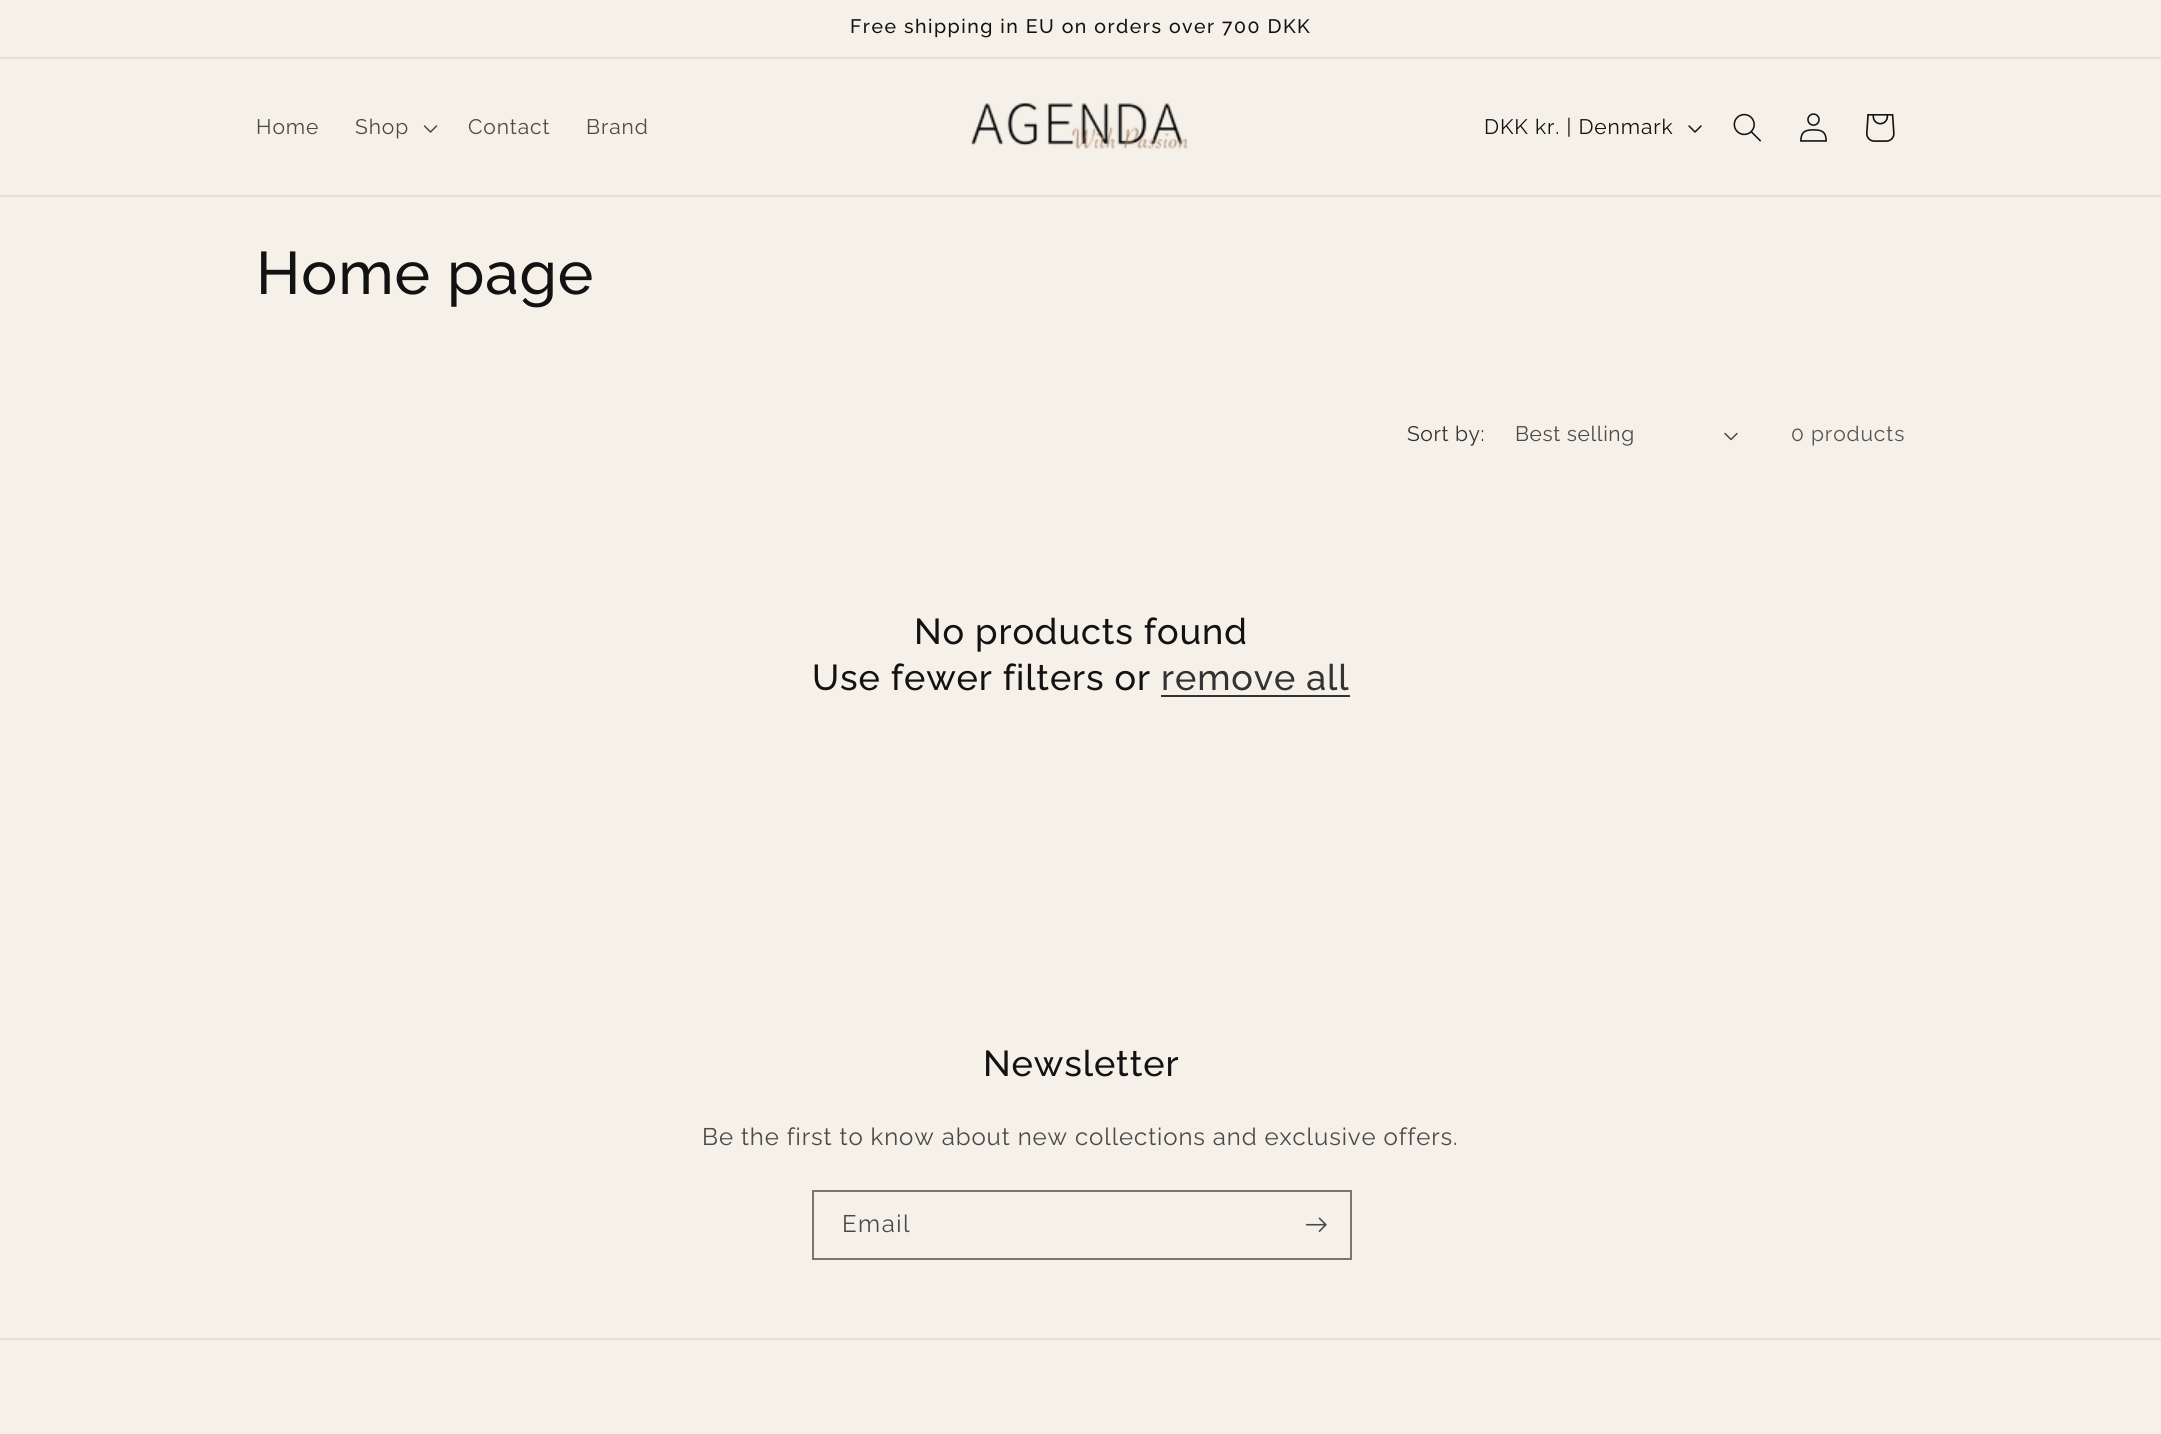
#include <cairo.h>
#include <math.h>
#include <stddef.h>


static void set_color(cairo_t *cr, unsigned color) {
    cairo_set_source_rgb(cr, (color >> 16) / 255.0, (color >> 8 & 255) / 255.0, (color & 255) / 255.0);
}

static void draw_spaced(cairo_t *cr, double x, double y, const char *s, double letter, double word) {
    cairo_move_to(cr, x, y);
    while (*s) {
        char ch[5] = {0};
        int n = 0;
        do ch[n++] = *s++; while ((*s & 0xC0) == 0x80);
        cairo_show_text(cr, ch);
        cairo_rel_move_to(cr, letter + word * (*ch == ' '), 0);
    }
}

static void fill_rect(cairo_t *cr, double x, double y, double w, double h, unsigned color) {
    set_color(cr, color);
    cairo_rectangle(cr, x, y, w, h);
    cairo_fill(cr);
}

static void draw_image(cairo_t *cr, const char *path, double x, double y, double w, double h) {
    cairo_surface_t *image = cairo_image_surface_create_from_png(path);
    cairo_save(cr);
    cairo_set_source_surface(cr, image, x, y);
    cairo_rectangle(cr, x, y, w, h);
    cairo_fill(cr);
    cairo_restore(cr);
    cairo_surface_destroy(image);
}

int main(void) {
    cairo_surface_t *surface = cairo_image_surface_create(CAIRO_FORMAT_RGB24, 2161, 1434);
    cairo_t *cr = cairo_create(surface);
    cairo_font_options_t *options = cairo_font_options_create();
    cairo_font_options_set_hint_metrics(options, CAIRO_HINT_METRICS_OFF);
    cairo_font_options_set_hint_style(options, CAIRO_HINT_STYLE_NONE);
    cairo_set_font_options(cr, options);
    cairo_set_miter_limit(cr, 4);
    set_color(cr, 0xF5F1E9);
    cairo_paint(cr);
    fill_rect(cr, 0, 57, 2161, 2, 0xE3DFD8);
    cairo_select_font_face(cr, "Raleway Medium", CAIRO_FONT_SLANT_NORMAL, CAIRO_FONT_WEIGHT_NORMAL);
    cairo_set_font_size(cr, 19.5);
    set_color(cr, 0x121212);
    draw_spaced(cr, 850, 33, "Free shipping in EU on orders over 700 DKK", 1.5, 0);
    fill_rect(cr, 0, 195, 2161, 2, 0xE3DFD8);
    cairo_select_font_face(cr, "Raleway", CAIRO_FONT_SLANT_NORMAL, CAIRO_FONT_WEIGHT_NORMAL);
    cairo_set_font_size(cr, 21);
    set_color(cr, 0x4B4A48);
    draw_spaced(cr, 256, 134, "Home", 0.9, 0);
    draw_spaced(cr, 355, 134, "Shop", 0.9, 0);
    draw_image(cr, "assets/img1.png", 423, 125, 15, 8);
    draw_spaced(cr, 468, 134, "Contact", 0.9, 0);
    draw_spaced(cr, 586, 134, "Brand", 0.9, 0);
    draw_image(cr, "assets/img2.png", 970, 102, 219, 47);
    set_color(cr, 0x121212);
    draw_spaced(cr, 1484, 134, "DKK kr. | Denmark", 0.9, 0);
    draw_image(cr, "assets/img3.png", 1688, 125, 14, 8);
    draw_image(cr, "assets/img4.png", 1733, 113, 28, 29);
    draw_image(cr, "assets/img5.png", 1800, 113, 27, 29);
    draw_image(cr, "assets/img6.png", 1866, 114, 29, 28);
    cairo_select_font_face(cr, "Raleway Medium", CAIRO_FONT_SLANT_NORMAL, CAIRO_FONT_WEIGHT_NORMAL);
    cairo_set_font_size(cr, 60);
    draw_spaced(cr, 256, 294, "Home page", 0.9, 0);
    cairo_select_font_face(cr, "Raleway", CAIRO_FONT_SLANT_NORMAL, CAIRO_FONT_WEIGHT_NORMAL);
    cairo_set_font_size(cr, 21);
    set_color(cr, 0x343332);
    draw_spaced(cr, 1407, 441, "Sort by:", 0.6, 0);
    set_color(cr, 0x4B4A48);
    draw_spaced(cr, 1515, 441, "Best selling", 0.6, 0);
    draw_image(cr, "assets/img7.png", 1724, 432, 14, 9);
    set_color(cr, 0x565553);
    draw_spaced(cr, 1791, 441, "0 products", 0.9, 0);
    cairo_select_font_face(cr, "Raleway Medium", CAIRO_FONT_SLANT_NORMAL, CAIRO_FONT_WEIGHT_NORMAL);
    cairo_set_font_size(cr, 36);
    set_color(cr, 0x121212);
    draw_spaced(cr, 914, 644, "No products found", 0.9, 0);
    draw_spaced(cr, 812, 690, "Use fewer filters or", 0.9, 0);
    set_color(cr, 0x343332);
    draw_spaced(cr, 1161, 690, "remove all", 0.9, 0);
    fill_rect(cr, 1161, 695, 189, 2, 0x343332);
    set_color(cr, 0x121212);
    draw_spaced(cr, 983, 1076, "Newsletter", 0.9, 0);
    cairo_select_font_face(cr, "Raleway", CAIRO_FONT_SLANT_NORMAL, CAIRO_FONT_WEIGHT_NORMAL);
    cairo_set_font_size(cr, 24);
    set_color(cr, 0x4B4A48);
    draw_spaced(cr, 702, 1145, "Be the first to know about new collections and exclusive offers.", 0.9, 0);
    cairo_rectangle(cr, 813, 1191, 538, 68);
    set_color(cr, 0x787673);
    cairo_stroke(cr);
    set_color(cr, 0x4B4A48);
    draw_spaced(cr, 842, 1232, "Email", 1.5, 0);
    draw_image(cr, "assets/img8.png", 1305, 1217, 22, 15);
    fill_rect(cr, 0, 1338, 2161, 2, 0xE3DFD8);
    cairo_surface_write_to_png(surface, "output.png");
    cairo_font_options_destroy(options);
    cairo_destroy(cr);
    cairo_surface_destroy(surface);
    return 0;
}
